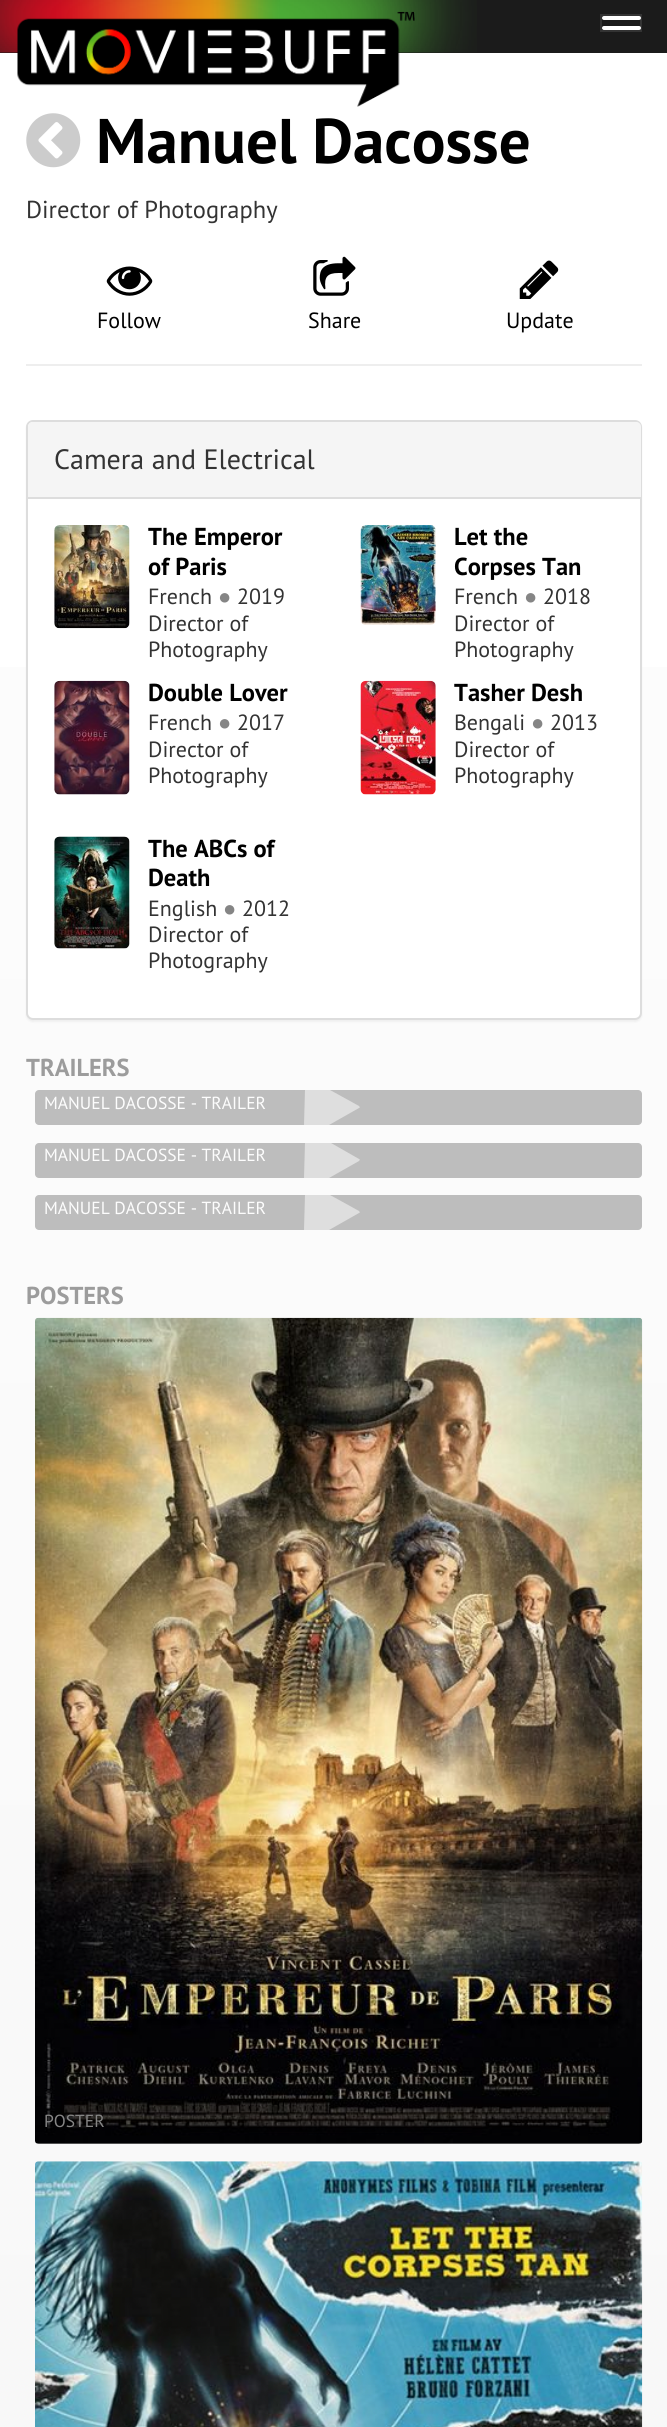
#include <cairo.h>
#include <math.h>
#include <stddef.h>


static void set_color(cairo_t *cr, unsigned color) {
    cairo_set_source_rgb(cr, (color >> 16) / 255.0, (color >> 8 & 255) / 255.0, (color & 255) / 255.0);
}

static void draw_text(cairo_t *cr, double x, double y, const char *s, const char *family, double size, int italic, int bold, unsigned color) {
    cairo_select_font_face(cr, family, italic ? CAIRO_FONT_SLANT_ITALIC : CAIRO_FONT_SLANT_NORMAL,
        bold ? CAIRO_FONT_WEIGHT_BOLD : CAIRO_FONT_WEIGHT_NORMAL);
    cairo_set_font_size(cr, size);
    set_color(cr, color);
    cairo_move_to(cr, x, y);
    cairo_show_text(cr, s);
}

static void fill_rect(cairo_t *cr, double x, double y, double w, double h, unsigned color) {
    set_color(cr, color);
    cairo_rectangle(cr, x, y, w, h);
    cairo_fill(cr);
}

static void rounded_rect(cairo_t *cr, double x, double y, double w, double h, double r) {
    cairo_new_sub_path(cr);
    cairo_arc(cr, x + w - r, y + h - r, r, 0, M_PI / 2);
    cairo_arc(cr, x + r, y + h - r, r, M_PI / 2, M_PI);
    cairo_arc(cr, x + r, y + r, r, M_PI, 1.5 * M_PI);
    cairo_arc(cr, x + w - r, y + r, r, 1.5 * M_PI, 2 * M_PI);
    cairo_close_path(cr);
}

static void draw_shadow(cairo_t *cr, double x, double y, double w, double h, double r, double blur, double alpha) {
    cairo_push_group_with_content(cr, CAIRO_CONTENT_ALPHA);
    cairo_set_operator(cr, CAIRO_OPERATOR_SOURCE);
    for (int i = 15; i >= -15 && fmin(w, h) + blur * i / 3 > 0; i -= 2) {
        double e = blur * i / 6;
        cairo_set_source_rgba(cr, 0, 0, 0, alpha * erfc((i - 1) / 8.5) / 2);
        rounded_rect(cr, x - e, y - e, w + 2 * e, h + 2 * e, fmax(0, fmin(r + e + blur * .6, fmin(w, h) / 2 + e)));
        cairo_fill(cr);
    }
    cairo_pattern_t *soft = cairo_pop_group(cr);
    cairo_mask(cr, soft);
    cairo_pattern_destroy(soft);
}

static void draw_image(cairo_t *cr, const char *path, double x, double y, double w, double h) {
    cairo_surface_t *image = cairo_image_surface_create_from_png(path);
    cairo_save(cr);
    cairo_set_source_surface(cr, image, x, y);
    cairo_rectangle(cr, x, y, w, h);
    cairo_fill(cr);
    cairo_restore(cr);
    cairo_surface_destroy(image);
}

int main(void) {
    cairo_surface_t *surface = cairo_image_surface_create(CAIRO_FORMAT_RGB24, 667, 2427);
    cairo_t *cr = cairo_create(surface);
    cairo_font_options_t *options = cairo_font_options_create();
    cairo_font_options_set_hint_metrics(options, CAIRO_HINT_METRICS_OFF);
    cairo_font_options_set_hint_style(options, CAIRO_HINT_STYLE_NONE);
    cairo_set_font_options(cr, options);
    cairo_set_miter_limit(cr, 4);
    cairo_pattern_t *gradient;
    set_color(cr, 0xFFFFFF);
    cairo_paint(cr);
    gradient = cairo_pattern_create_linear(334, 0, 334, 2427);
    cairo_pattern_add_color_stop_rgba(gradient, 0, 1, 1, 1, 1);
    cairo_pattern_add_color_stop_rgba(gradient, 0.33, 0.988, 0.988, 0.988, 1);
    cairo_pattern_add_color_stop_rgba(gradient, 0.67, 0.98, 0.98, 0.98, 1);
    cairo_pattern_add_color_stop_rgba(gradient, 1, 0.973, 0.973, 0.973, 1);
    cairo_set_source(cr, gradient);
    cairo_pattern_destroy(gradient);
    cairo_rectangle(cr, 0, 667, 667, 1760);
    cairo_fill(cr);
    fill_rect(cr, 0, 0, 667, 53, 0x1B1B1B);
    draw_image(cr, "assets/img1.png", 0, 0, 477, 53);
    draw_image(cr, "assets/img2.png", 17, 11, 398, 96);
    cairo_rectangle(cr, 601, 15, 40, 16);
    set_color(cr, 0x333333);
    cairo_stroke(cr);
    set_color(cr, 0xFFFFFF);
    rounded_rect(cr, 602, 16, 39, 4, 2);
    cairo_fill(cr);
    rounded_rect(cr, 602, 26, 39, 4, 2);
    cairo_fill(cr);
    draw_image(cr, "assets/img3.png", 26, 113, 55, 55);
    draw_text(cr, 96, 163, "Manuel Dacosse", "PT Sans", 63, 0, 1, 0x000000);
    draw_text(cr, 26, 218, "Director of Photography", "PT Sans", 24.5, 0, 0, 0x333333);
    draw_image(cr, "assets/img4.png", 106, 266, 47, 30);
    draw_text(cr, 97, 328, "Follow", "PT Sans", 22, 0, 0, 0x000000);
    draw_image(cr, "assets/img5.png", 313, 256, 43, 40);
    draw_text(cr, 308, 328, "Share", "PT Sans", 22, 0, 0, 0x000000);
    draw_image(cr, "assets/img6.png", 519, 260, 40, 39);
    draw_text(cr, 506, 328, "Update", "PT Sans", 22, 0, 0, 0x000000);
    fill_rect(cr, 26, 364, 616, 2, 0xEEEEEE);
    set_color(cr, 0x000000);
    draw_shadow(cr, 26, 422, 616, 600, 7, 1, 0.05);
    set_color(cr, 0xFFFFFF);
    rounded_rect(cr, 27, 421, 614, 598, 6);
    cairo_fill_preserve(cr);
    set_color(cr, 0xDDDDDD);
    cairo_stroke(cr);
    set_color(cr, 0xF5F5F5);
    cairo_new_path(cr);
    cairo_move_to(cr, 33, 422);
    cairo_line_to(cr, 636, 422);
    cairo_curve_to(cr, 639, 422, 641, 424, 641, 427);
    cairo_line_to(cr, 641, 499);
    cairo_line_to(cr, 28, 499);
    cairo_line_to(cr, 28, 427);
    cairo_curve_to(cr, 28, 424, 30, 422, 33, 422);
    cairo_close_path(cr);
    cairo_fill(cr);
    fill_rect(cr, 28, 497, 613, 2, 0xDDDDDD);
    draw_text(cr, 54, 469, "Camera and Electrical", "PT Sans", 28, 0, 0, 0x333333);
    draw_image(cr, "assets/img7.png", 54, 525, 76, 104);
    draw_text(cr, 148, 545, "The Emperor", "PT Sans", 24.5, 0, 1, 0x000000);
    draw_text(cr, 148, 575, "of Paris", "PT Sans", 24.5, 0, 1, 0x000000);
    draw_text(cr, 148, 604, "French", "PT Sans", 22, 0, 0, 0x333333);
    draw_text(cr, 218, 604, "●", "Liberation Serif", 22, 0, 0, 0x858585);
    draw_text(cr, 237, 604, "2019", "PT Sans", 22, 0, 0, 0x333333);
    draw_text(cr, 148, 631, "Director of", "PT Sans", 22, 0, 0, 0x333333);
    draw_text(cr, 148, 657, "Photography", "PT Sans", 22, 0, 0, 0x333333);
    draw_image(cr, "assets/img8.png", 360, 525, 76, 100);
    draw_text(cr, 454, 545, "Let the", "PT Sans", 24.5, 0, 1, 0x000000);
    draw_text(cr, 454, 575, "Corpses Tan", "PT Sans", 24.5, 0, 1, 0x000000);
    draw_text(cr, 454, 604, "French", "PT Sans", 22, 0, 0, 0x333333);
    draw_text(cr, 524, 604, "●", "Liberation Serif", 22, 0, 0, 0x858585);
    draw_text(cr, 543, 604, "2018", "PT Sans", 22, 0, 0, 0x333333);
    draw_text(cr, 454, 631, "Director of", "PT Sans", 22, 0, 0, 0x333333);
    draw_text(cr, 454, 657, "Photography", "PT Sans", 22, 0, 0, 0x333333);
    draw_image(cr, "assets/img9.png", 54, 680, 76, 115);
    draw_text(cr, 148, 701, "Double Lover", "PT Sans", 24.5, 0, 1, 0x000000);
    draw_text(cr, 148, 730, "French", "PT Sans", 22, 0, 0, 0x333333);
    draw_text(cr, 218, 730, "●", "Liberation Serif", 22, 0, 0, 0x858585);
    draw_text(cr, 237, 730, "2017", "PT Sans", 22, 0, 0, 0x333333);
    draw_text(cr, 148, 757, "Director of", "PT Sans", 22, 0, 0, 0x333333);
    draw_text(cr, 148, 783, "Photography", "PT Sans", 22, 0, 0, 0x333333);
    draw_image(cr, "assets/img10.png", 360, 680, 76, 115);
    draw_text(cr, 454, 701, "Tasher Desh", "PT Sans", 24.5, 0, 1, 0x000000);
    draw_text(cr, 454, 730, "Bengali", "PT Sans", 22, 0, 0, 0x333333);
    draw_text(cr, 531, 730, "●", "Liberation Serif", 22, 0, 0, 0x858585);
    draw_text(cr, 550, 730, "2013", "PT Sans", 22, 0, 0, 0x333333);
    draw_text(cr, 454, 757, "Director of", "PT Sans", 22, 0, 0, 0x333333);
    draw_text(cr, 454, 783, "Photography", "PT Sans", 22, 0, 0, 0x333333);
    draw_image(cr, "assets/img11.png", 54, 836, 76, 113);
    draw_text(cr, 148, 857, "The ABCs of", "PT Sans", 24.5, 0, 1, 0x000000);
    draw_text(cr, 148, 886, "Death", "PT Sans", 24.5, 0, 1, 0x000000);
    draw_text(cr, 148, 916, "English", "PT Sans", 22, 0, 0, 0x333333);
    draw_text(cr, 223, 916, "●", "Liberation Serif", 22, 0, 0, 0x858585);
    draw_text(cr, 242, 916, "2012", "PT Sans", 22, 0, 0, 0x333333);
    draw_text(cr, 148, 942, "Director of", "PT Sans", 22, 0, 0, 0x333333);
    draw_text(cr, 148, 968, "Photography", "PT Sans", 22, 0, 0, 0x333333);
    draw_text(cr, 26, 1076, "TRAILERS", "PT Sans", 24.5, 0, 1, 0x9C9C9C);
    set_color(cr, 0xBDBDBD);
    rounded_rect(cr, 35, 1090, 607, 35, 4);
    cairo_fill(cr);
    draw_text(cr, 44, 1109, "MANUEL DACOSSE - TRAILER", "PT Sans", 17.5, 0, 0, 0xFDFDFD);
    set_color(cr, 0xDEDEDE);
    cairo_new_path(cr);
    cairo_move_to(cr, 359, 1108);
    cairo_line_to(cr, 329, 1125);
    cairo_line_to(cr, 304, 1125);
    cairo_line_to(cr, 305, 1090);
    cairo_line_to(cr, 330, 1090);
    cairo_line_to(cr, 359, 1106);
    cairo_curve_to(cr, 360, 1107, 360, 1108, 359, 1108);
    cairo_close_path(cr);
    cairo_fill(cr);
    set_color(cr, 0xBDBDBD);
    rounded_rect(cr, 35, 1143, 607, 35, 4);
    cairo_fill(cr);
    draw_text(cr, 44, 1161, "MANUEL DACOSSE - TRAILER", "PT Sans", 17.5, 0, 0, 0xFDFDFD);
    set_color(cr, 0xDEDEDE);
    cairo_new_path(cr);
    cairo_move_to(cr, 359, 1161);
    cairo_line_to(cr, 329, 1178);
    cairo_line_to(cr, 304, 1178);
    cairo_line_to(cr, 305, 1143);
    cairo_line_to(cr, 331, 1143);
    cairo_line_to(cr, 359, 1159);
    cairo_curve_to(cr, 360, 1159, 360, 1160, 359, 1161);
    cairo_close_path(cr);
    cairo_fill(cr);
    set_color(cr, 0xBDBDBD);
    rounded_rect(cr, 35, 1195, 607, 35, 4);
    cairo_fill(cr);
    draw_text(cr, 44, 1214, "MANUEL DACOSSE - TRAILER", "PT Sans", 17.5, 0, 0, 0xFDFDFD);
    set_color(cr, 0xDEDEDE);
    cairo_new_path(cr);
    cairo_move_to(cr, 359, 1213);
    cairo_line_to(cr, 329, 1230);
    cairo_line_to(cr, 304, 1230);
    cairo_line_to(cr, 305, 1195);
    cairo_line_to(cr, 330, 1195);
    cairo_line_to(cr, 359, 1211);
    cairo_curve_to(cr, 360, 1212, 360, 1213, 359, 1213);
    cairo_close_path(cr);
    cairo_fill(cr);
    draw_text(cr, 26, 1304, "POSTERS", "PT Sans", 24.5, 0, 1, 0x9C9C9C);
    draw_image(cr, "assets/img12.png", 35, 1317, 608, 827);
    cairo_set_source_rgba(cr, 0, 0, 0, 0.25);
    cairo_new_path(cr);
    cairo_move_to(cr, 35, 2100);
    cairo_line_to(cr, 642, 2100);
    cairo_line_to(cr, 642, 2140);
    cairo_curve_to(cr, 642, 2142, 640, 2144, 638, 2144);
    cairo_line_to(cr, 39, 2144);
    cairo_curve_to(cr, 37, 2144, 35, 2142, 35, 2140);
    cairo_close_path(cr);
    cairo_fill(cr);
    draw_text(cr, 44, 2127, "POSTER", "PT Sans", 17.5, 0, 0, 0x858585);
    draw_image(cr, "assets/img13.png", 35, 2161, 608, 266);
    cairo_surface_write_to_png(surface, "output.png");
    cairo_font_options_destroy(options);
    cairo_destroy(cr);
    cairo_surface_destroy(surface);
    return 0;
}
